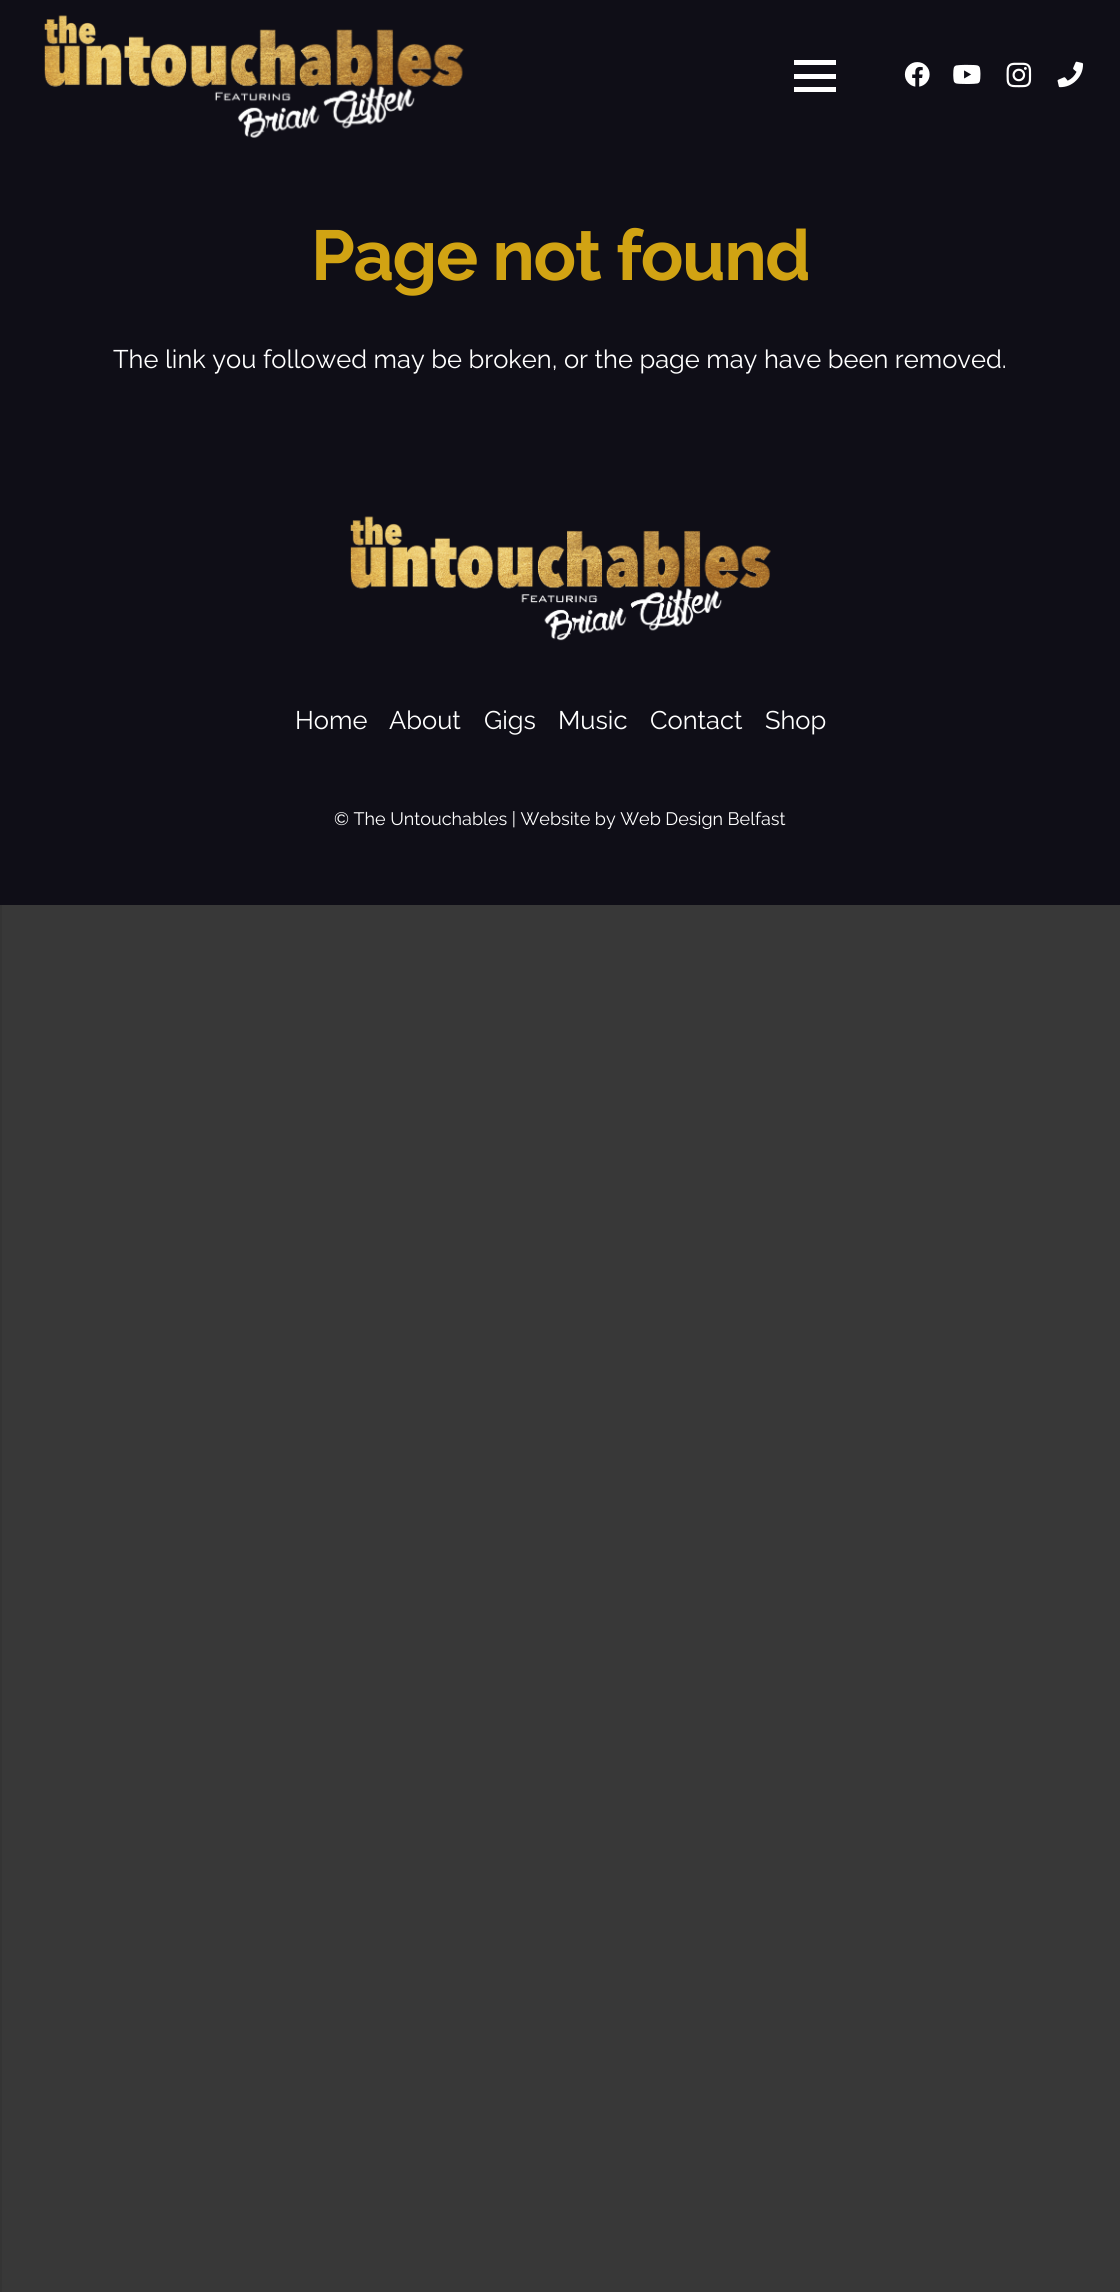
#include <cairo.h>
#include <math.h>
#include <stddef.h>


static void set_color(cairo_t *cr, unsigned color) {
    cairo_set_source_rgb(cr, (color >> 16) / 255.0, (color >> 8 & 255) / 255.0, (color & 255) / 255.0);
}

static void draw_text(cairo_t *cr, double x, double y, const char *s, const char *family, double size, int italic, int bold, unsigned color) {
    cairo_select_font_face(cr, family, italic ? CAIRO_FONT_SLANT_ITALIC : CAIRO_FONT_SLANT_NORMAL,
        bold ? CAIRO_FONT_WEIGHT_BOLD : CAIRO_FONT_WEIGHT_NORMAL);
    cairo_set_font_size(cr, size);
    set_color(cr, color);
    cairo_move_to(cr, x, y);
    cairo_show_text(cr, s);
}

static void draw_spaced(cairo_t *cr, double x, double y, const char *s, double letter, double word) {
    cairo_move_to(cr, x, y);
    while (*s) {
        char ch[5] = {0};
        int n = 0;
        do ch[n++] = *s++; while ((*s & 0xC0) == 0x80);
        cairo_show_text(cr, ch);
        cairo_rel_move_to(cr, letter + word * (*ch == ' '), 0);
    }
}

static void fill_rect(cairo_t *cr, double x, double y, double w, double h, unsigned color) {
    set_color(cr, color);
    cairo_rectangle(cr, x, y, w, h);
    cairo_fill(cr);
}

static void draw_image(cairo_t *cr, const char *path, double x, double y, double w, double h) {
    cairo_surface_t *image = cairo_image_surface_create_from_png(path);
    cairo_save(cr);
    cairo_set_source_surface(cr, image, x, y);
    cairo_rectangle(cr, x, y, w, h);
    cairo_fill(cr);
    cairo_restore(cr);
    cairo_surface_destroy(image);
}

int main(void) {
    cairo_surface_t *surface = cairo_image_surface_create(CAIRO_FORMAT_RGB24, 1120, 2292);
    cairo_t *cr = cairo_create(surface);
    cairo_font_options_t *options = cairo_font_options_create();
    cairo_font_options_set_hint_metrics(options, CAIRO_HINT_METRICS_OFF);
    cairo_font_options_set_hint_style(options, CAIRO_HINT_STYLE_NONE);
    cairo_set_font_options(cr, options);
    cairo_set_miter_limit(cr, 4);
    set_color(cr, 0x383838);
    cairo_paint(cr);
    fill_rect(cr, 0, 0, 1120, 905, 0x0F0E17);
    draw_image(cr, "assets/img1.png", 44, 15, 420, 123);
    fill_rect(cr, 794, 74, 42, 5, 0xFFFFFF);
    fill_rect(cr, 794, 60, 42, 5, 0xFFFFFF);
    fill_rect(cr, 794, 87, 42, 5, 0xFFFFFF);
    cairo_set_source_rgba(cr, 0, 0, 0, 0.08);
    cairo_rectangle(cr, 0, 905, 2, 1387);
    cairo_fill(cr);
    draw_image(cr, "assets/img2.png", 904, 62, 26, 25);
    draw_image(cr, "assets/img3.png", 953, 64, 28, 20);
    draw_image(cr, "assets/img4.png", 1006, 62, 26, 26);
    draw_image(cr, "assets/img5.png", 1057, 61, 27, 27);
    cairo_select_font_face(cr, "Raleway", CAIRO_FONT_SLANT_NORMAL, CAIRO_FONT_WEIGHT_BOLD);
    cairo_set_font_size(cr, 70.5);
    set_color(cr, 0xD1A313);
    draw_spaced(cr, 311, 280, "Page not found", -1.4, 0);
    draw_text(cr, 113, 368, "The link you followed may be broken, or the page may have been removed.", "Raleway", 25.5, 0, 0, 0xFFFFFF);
    draw_image(cr, "assets/img6.png", 350, 516, 421, 125);
    draw_text(cr, 295, 729, "Home", "Raleway", 25.5, 0, 0, 0xFFFFFF);
    draw_text(cr, 389, 729, "About", "Raleway", 25.5, 0, 0, 0xFFFFFF);
    draw_text(cr, 484, 729, "Gigs", "Raleway", 25.5, 0, 0, 0xFFFFFF);
    draw_text(cr, 558, 729, "Music", "Raleway", 25.5, 0, 0, 0xFFFFFF);
    draw_text(cr, 650, 729, "Contact", "Raleway", 25.5, 0, 0, 0xFFFFFF);
    draw_text(cr, 765, 729, "Shop", "Raleway", 25.5, 0, 0, 0xFFFFFF);
    draw_text(cr, 334, 825, "© The Untouchables | Website by Web Design Belfast", "Raleway", 18, 0, 0, 0xFFFFFF);
    cairo_surface_write_to_png(surface, "output.png");
    cairo_font_options_destroy(options);
    cairo_destroy(cr);
    cairo_surface_destroy(surface);
    return 0;
}
